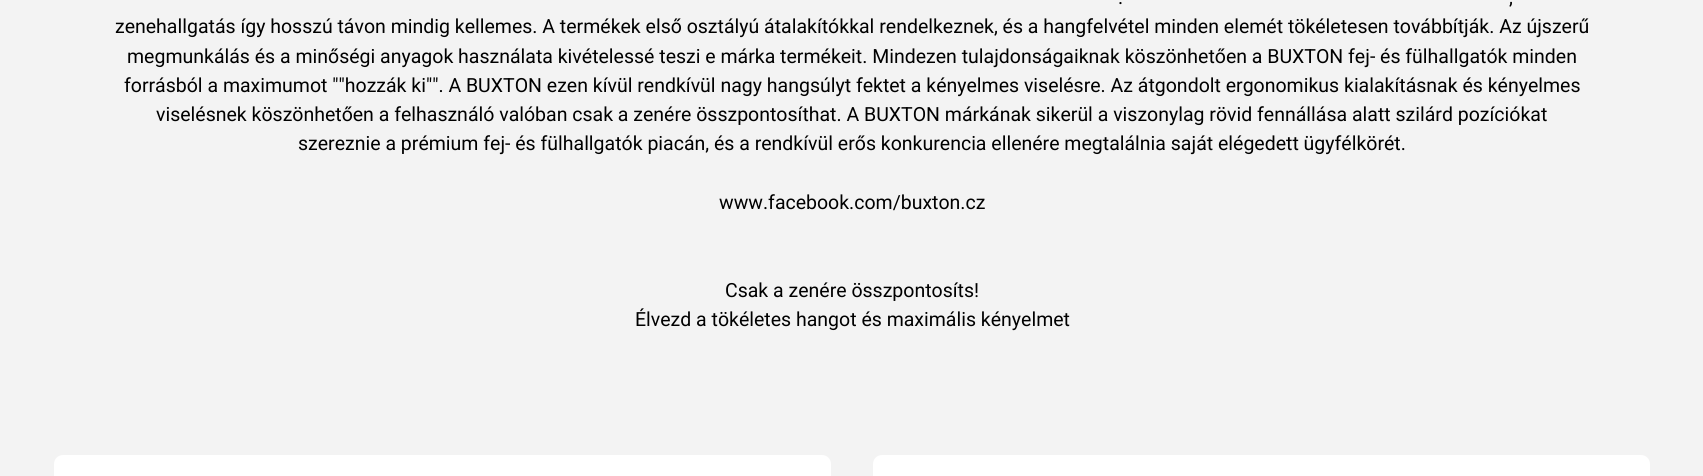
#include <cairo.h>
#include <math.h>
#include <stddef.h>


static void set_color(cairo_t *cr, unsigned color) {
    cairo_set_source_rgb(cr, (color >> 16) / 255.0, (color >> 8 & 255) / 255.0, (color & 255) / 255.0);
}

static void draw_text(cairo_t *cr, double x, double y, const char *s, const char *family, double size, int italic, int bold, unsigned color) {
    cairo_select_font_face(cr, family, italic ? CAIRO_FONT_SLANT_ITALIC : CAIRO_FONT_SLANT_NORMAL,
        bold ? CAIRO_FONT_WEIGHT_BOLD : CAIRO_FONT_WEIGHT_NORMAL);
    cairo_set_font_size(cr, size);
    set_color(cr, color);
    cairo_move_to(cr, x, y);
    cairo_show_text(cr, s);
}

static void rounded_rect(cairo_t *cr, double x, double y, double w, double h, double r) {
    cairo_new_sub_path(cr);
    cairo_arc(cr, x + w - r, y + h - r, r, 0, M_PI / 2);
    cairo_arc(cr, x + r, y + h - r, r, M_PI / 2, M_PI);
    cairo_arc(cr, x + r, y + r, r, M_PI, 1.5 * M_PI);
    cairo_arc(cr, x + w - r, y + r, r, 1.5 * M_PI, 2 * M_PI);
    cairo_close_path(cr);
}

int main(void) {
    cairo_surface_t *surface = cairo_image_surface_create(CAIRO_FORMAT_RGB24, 1703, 476);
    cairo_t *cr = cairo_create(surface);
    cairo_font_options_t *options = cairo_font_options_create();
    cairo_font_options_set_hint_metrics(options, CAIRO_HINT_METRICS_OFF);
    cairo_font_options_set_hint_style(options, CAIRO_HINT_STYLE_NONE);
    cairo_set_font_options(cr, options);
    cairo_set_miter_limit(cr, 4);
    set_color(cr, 0xF3F3F3);
    cairo_paint(cr);
    draw_text(cr, 1118, 4, ".", "Roboto", 19.5, 0, 0, 0x000000);
    draw_text(cr, 1509, 4, ",", "Roboto", 19.5, 0, 0, 0x000000);
    draw_text(cr, 115, 33, "zenehallgatás így hosszú távon mindig kellemes. A termékek első osztályú átalakítókkal rendelkeznek, és a hangfelvétel minden elemét tökéletesen továbbítják. Az újszerű", "Roboto", 19.5, 0, 0, 0x000000);
    draw_text(cr, 127, 63, "megmunkálás és a minőségi anyagok használata kivételessé teszi e márka termékeit. Mindezen tulajdonságaiknak köszönhetően a BUXTON fej- és fülhallgatók minden", "Roboto", 19.5, 0, 0, 0x000000);
    draw_text(cr, 124, 92, "forrásból a maximumot \"\"hozzák ki\"\". A BUXTON ezen kívül rendkívül nagy hangsúlyt fektet a kényelmes viselésre. Az átgondolt ergonomikus kialakításnak és kényelmes", "Roboto", 19.5, 0, 0, 0x000000);
    draw_text(cr, 156, 121, "viselésnek köszönhetően a felhasználó valóban csak a zenére összpontosíthat. A BUXTON márkának sikerül a viszonylag rövid fennállása alatt szilárd pozíciókat", "Roboto", 19.5, 0, 0, 0x000000);
    draw_text(cr, 298, 150, "szereznie a prémium fej- és fülhallgatók piacán, és a rendkívül erős konkurencia ellenére megtalálnia saját elégedett ügyfélkörét.", "Roboto", 19.5, 0, 0, 0x000000);
    draw_text(cr, 719, 209, "www.facebook.com/buxton.cz", "Roboto", 19.5, 0, 0, 0x000000);
    draw_text(cr, 725, 297, "Csak a zenére összpontosíts!", "Roboto", 19.5, 0, 0, 0x000000);
    draw_text(cr, 635, 326, "Élvezd a tökéletes hangot és maximális kényelmet", "Roboto", 19.5, 0, 0, 0x000000);
    set_color(cr, 0xFFFFFF);
    rounded_rect(cr, 54, 455, 777, 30, 9);
    cairo_fill(cr);
    rounded_rect(cr, 873, 455, 777, 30, 9);
    cairo_fill(cr);
    cairo_surface_write_to_png(surface, "output.png");
    cairo_font_options_destroy(options);
    cairo_destroy(cr);
    cairo_surface_destroy(surface);
    return 0;
}
